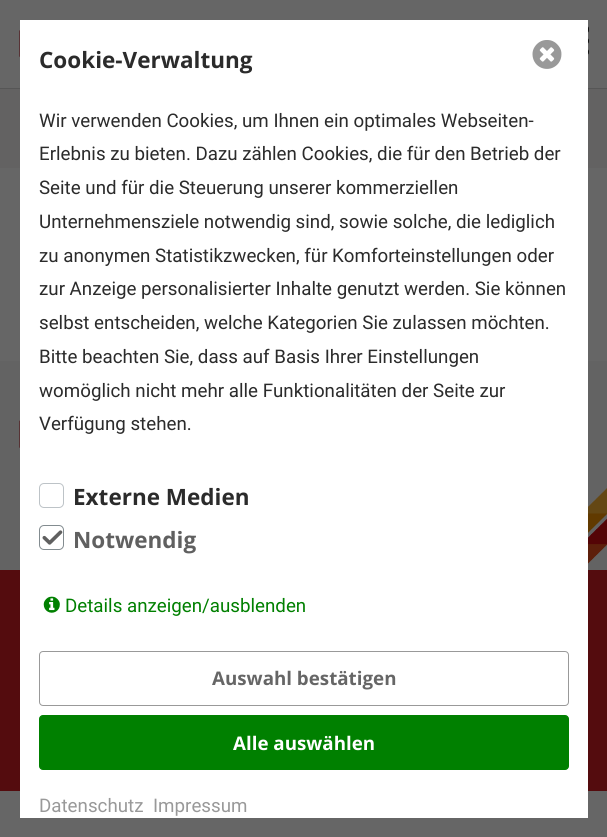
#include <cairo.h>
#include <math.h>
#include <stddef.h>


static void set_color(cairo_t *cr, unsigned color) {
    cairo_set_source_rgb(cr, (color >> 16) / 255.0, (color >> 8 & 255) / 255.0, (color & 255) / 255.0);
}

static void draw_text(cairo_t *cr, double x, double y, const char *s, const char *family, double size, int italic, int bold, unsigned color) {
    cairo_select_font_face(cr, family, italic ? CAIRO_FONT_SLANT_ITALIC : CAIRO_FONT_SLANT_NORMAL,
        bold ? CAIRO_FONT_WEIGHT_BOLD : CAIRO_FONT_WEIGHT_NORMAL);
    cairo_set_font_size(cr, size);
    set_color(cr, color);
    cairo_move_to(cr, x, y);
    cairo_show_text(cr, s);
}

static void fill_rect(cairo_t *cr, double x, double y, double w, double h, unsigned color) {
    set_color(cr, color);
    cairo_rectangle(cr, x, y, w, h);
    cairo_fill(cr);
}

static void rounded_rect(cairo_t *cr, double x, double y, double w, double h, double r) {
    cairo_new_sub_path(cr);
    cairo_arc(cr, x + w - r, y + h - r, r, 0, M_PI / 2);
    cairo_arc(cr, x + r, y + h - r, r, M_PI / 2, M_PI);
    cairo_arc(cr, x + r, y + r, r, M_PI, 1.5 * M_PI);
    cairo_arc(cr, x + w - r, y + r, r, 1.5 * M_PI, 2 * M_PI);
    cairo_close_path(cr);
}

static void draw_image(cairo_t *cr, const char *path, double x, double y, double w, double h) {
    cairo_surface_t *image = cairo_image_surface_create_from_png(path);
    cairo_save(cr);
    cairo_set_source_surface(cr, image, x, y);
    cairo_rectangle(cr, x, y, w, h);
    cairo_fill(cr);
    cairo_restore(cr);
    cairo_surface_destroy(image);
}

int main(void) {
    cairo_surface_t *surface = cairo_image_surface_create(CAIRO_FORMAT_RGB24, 607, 837);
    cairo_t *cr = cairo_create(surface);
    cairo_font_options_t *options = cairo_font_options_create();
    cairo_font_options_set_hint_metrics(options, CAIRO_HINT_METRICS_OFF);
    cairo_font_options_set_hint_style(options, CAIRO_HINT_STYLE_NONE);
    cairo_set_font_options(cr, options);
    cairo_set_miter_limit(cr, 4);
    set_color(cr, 0x666666);
    cairo_paint(cr);
    fill_rect(cr, 0, 88, 607, 1, 0x565656);
    draw_image(cr, "assets/img1.png", 19, 30, 1, 27);
    set_color(cr, 0x111111);
    rounded_rect(cr, 554, 38, 35, 6, 2.5);
    cairo_fill(cr);
    rounded_rect(cr, 554, 26, 35, 7, 2.5);
    cairo_fill(cr);
    rounded_rect(cr, 554, 49, 35, 6, 2.5);
    cairo_fill(cr);
    fill_rect(cr, 0, 89, 607, 79, 0x636262);
    fill_rect(cr, 0, 361, 607, 209, 0x636363);
    draw_image(cr, "assets/img2.png", 588, 488, 19, 76);
    draw_image(cr, "assets/img3.png", 19, 420, 1, 28);
    fill_rect(cr, 0, 570, 607, 221, 0x540C0E);
    fill_rect(cr, 20, 20, 568, 798, 0xFFFFFF);
    draw_image(cr, "assets/img4.png", 532, 40, 30, 29);
    draw_text(cr, 39, 68, "Cookie-Verwaltung", "Open Sans", 22.5, 0, 1, 0x2B2B2B);
    draw_text(cr, 39, 127, "Wir verwenden Cookies, um Ihnen ein optimales Webseiten-", "Roboto", 18.75, 0, 0, 0x2B2B2B);
    draw_text(cr, 39, 160, "Erlebnis zu bieten. Dazu zählen Cookies, die für den Betrieb der", "Roboto", 18.75, 0, 0, 0x2B2B2B);
    draw_text(cr, 39, 194, "Seite und für die Steuerung unserer kommerziellen", "Roboto", 18.75, 0, 0, 0x2B2B2B);
    draw_text(cr, 39, 228, "Unternehmensziele notwendig sind, sowie solche, die lediglich", "Roboto", 18.75, 0, 0, 0x2B2B2B);
    draw_text(cr, 39, 262, "zu anonymen Statistikzwecken, für Komforteinstellungen oder", "Roboto", 18.75, 0, 0, 0x2B2B2B);
    draw_text(cr, 39, 295, "zur Anzeige personalisierter Inhalte genutzt werden. Sie können", "Roboto", 18.75, 0, 0, 0x2B2B2B);
    draw_text(cr, 39, 329, "selbst entscheiden, welche Kategorien Sie zulassen möchten.", "Roboto", 18.75, 0, 0, 0x2B2B2B);
    draw_text(cr, 39, 363, "Bitte beachten Sie, dass auf Basis Ihrer Einstellungen", "Roboto", 18.75, 0, 0, 0x2B2B2B);
    draw_text(cr, 39, 397, "womöglich nicht mehr alle Funktionalitäten der Seite zur", "Roboto", 18.75, 0, 0, 0x2B2B2B);
    draw_text(cr, 39, 430, "Verfügung stehen.", "Roboto", 18.75, 0, 0, 0x2B2B2B);
    rounded_rect(cr, 39.5, 483.5, 24, 24, 4.5);
    set_color(cr, 0xBDC3C7);
    cairo_set_line_width(cr, 1);
    cairo_stroke(cr);
    draw_text(cr, 73, 505, "Externe Medien", "Open Sans", 22.5, 0, 1, 0x2B2B2B);
    rounded_rect(cr, 39.5, 525.5, 24, 24, 4.5);
    set_color(cr, 0x838C90);
    cairo_stroke(cr);
    draw_image(cr, "assets/img5.png", 42, 530, 21, 15);
    draw_text(cr, 73, 548, "Notwendig", "Open Sans", 22.5, 0, 1, 0x606060);
    draw_image(cr, "assets/img6.png", 43, 596, 17, 17);
    draw_text(cr, 65, 612, "Details anzeigen/ausblenden", "Roboto", 18.75, 0, 0, 0x008000);
    rounded_rect(cr, 39.5, 651.5, 529, 54, 3.5);
    set_color(cr, 0x999999);
    cairo_stroke(cr);
    draw_text(cr, 212, 685, "Auswahl bestätigen", "Open Sans", 18.75, 0, 1, 0x666666);
    set_color(cr, 0x008000);
    rounded_rect(cr, 39.5, 715.5, 529, 54, 3.5);
    cairo_fill_preserve(cr);
    cairo_stroke(cr);
    draw_text(cr, 233, 750, "Alle auswählen", "Open Sans", 18.75, 0, 1, 0xFFFFFF);
    draw_text(cr, 39, 812, "Datenschutz", "Roboto", 18.75, 0, 0, 0x999999);
    draw_text(cr, 153, 812, "Impressum", "Roboto", 18.75, 0, 0, 0x999999);
    cairo_surface_write_to_png(surface, "output.png");
    cairo_font_options_destroy(options);
    cairo_destroy(cr);
    cairo_surface_destroy(surface);
    return 0;
}
